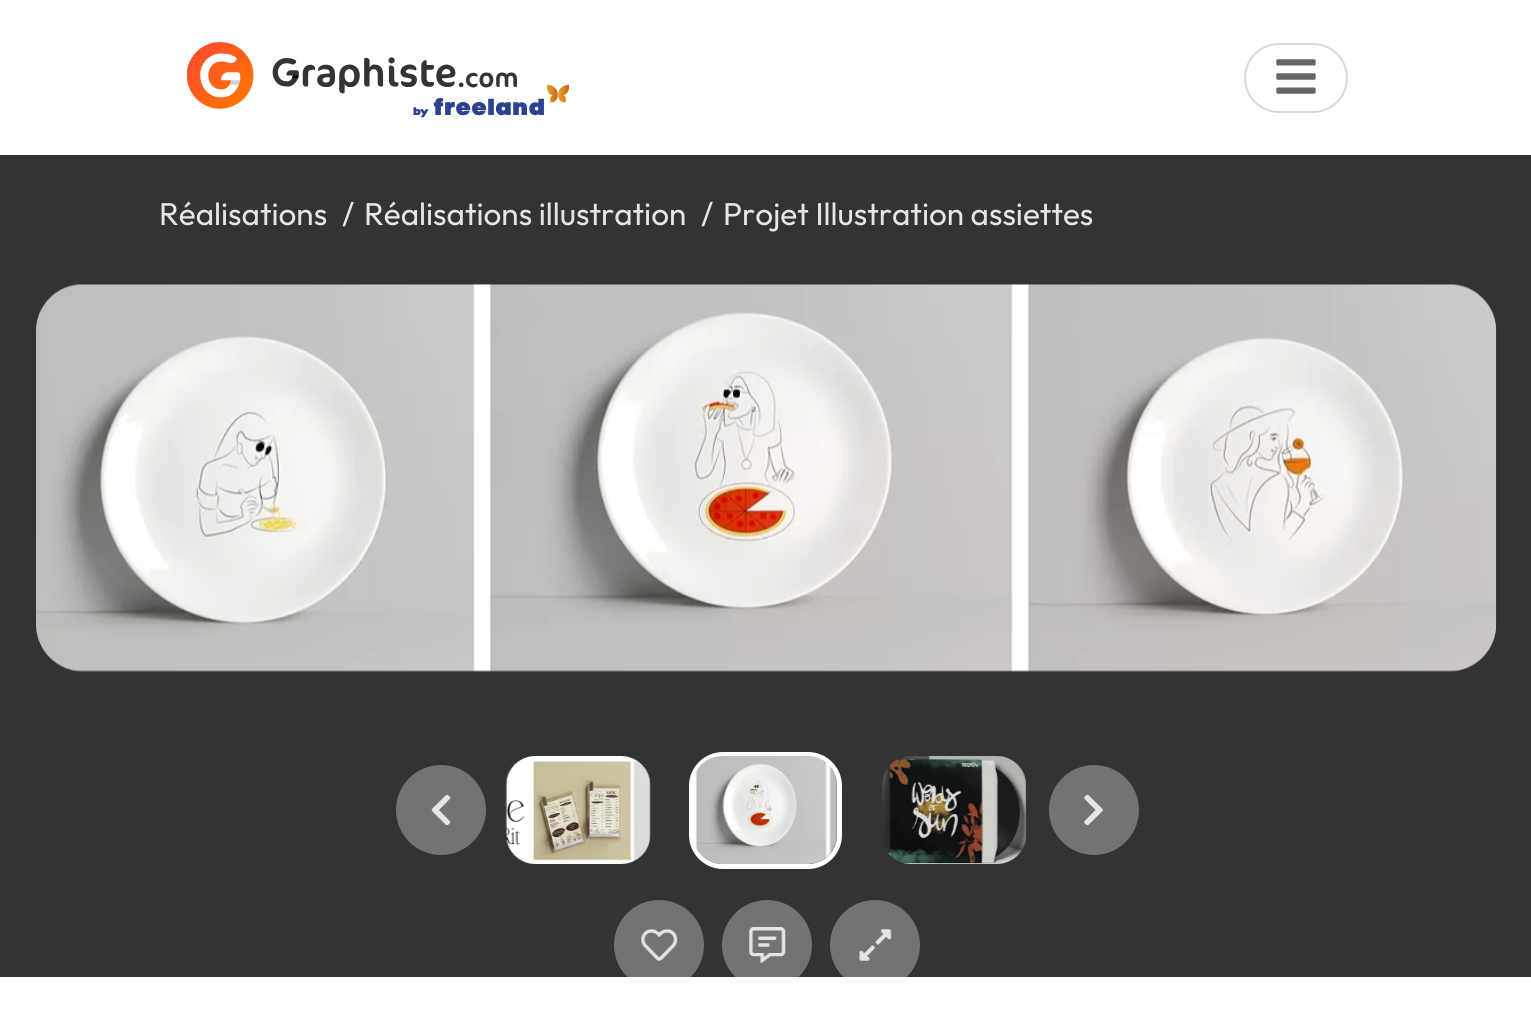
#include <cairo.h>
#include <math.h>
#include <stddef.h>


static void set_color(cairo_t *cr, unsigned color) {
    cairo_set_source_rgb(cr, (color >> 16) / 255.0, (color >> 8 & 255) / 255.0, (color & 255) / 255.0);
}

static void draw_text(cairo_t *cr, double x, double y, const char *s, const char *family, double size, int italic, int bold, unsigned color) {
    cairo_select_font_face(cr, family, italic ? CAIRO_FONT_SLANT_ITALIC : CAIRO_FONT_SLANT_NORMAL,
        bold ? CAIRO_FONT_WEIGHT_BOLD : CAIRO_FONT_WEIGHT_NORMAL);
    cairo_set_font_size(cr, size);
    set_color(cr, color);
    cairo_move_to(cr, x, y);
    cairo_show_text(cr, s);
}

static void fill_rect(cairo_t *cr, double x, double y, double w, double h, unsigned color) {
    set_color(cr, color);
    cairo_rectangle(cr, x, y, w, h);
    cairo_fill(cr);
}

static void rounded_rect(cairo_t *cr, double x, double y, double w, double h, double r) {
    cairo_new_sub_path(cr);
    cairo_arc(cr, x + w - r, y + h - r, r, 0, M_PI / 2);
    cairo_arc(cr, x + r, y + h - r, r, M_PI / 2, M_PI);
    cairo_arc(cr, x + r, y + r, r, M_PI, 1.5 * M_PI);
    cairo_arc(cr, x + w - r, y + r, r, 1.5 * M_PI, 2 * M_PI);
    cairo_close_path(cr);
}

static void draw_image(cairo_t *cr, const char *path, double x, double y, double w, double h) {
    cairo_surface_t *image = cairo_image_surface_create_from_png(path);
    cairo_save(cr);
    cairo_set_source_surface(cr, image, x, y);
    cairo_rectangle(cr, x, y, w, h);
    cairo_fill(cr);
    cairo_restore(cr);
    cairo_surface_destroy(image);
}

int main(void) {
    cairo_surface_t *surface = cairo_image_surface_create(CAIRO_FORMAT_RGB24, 1531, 1024);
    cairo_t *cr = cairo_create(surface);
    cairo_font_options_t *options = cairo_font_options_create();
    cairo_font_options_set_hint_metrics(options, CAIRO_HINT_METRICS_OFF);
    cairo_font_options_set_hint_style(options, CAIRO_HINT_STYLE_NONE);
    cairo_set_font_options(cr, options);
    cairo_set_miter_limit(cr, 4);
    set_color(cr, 0xFFFFFF);
    cairo_paint(cr);
    fill_rect(cr, 0, 155, 1531, 822, 0x333333);
    draw_image(cr, "assets/img1.png", 187, 42, 382, 76);
    rounded_rect(cr, 1245, 44, 102, 68, 34);
    set_color(cr, 0xD9D9D9);
    cairo_stroke(cr);
    draw_image(cr, "assets/img2.png", 1276, 59, 40, 35);
    draw_text(cr, 159, 225, "Réalisations", "Outfit", 31.5, 0, 0, 0xE5E5E5);
    draw_text(cr, 342, 225, "/", "Outfit", 31.5, 0, 0, 0xE5E5E5);
    draw_text(cr, 364, 225, "Réalisations illustration", "Outfit", 31.5, 0, 0, 0xE5E5E5);
    draw_text(cr, 701, 225, "/", "Outfit", 31.5, 0, 0, 0xE5E5E5);
    draw_text(cr, 723, 225, "Projet Illustration assiettes", "Outfit", 31.5, 0, 0, 0xE5E5E5);
    draw_image(cr, "assets/img3.png", 36, 284, 1461, 388);
    set_color(cr, 0x737373);
    cairo_arc(cr, 441, 810, 45, 0, 2 * M_PI);
    cairo_fill(cr);
    draw_image(cr, "assets/img4.png", 431, 794, 20, 32);
    draw_image(cr, "assets/img5.png", 505, 756, 146, 108);
    rounded_rect(cr, 691.5, 754.5, 148, 112, 31.5);
    set_color(cr, 0xFFFFFF);
    cairo_set_line_width(cr, 5);
    cairo_stroke(cr);
    draw_image(cr, "assets/img6.png", 694, 756, 143, 108);
    draw_image(cr, "assets/img7.png", 882, 756, 145, 108);
    set_color(cr, 0x737373);
    cairo_arc(cr, 1094, 810, 45, 0, 2 * M_PI);
    cairo_fill(cr);
    draw_image(cr, "assets/img8.png", 1084, 794, 19, 32);
    cairo_save(cr);
    cairo_rectangle(cr, 0, 155, 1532, 822);
    cairo_clip(cr);
    cairo_arc(cr, 659, 945, 45, 0, 2 * M_PI);
    cairo_fill(cr);
    cairo_restore(cr);
    draw_image(cr, "assets/img9.png", 641, 929, 37, 32);
    cairo_save(cr);
    cairo_rectangle(cr, 0, 155, 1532, 822);
    cairo_clip(cr);
    cairo_arc(cr, 767, 945, 45, 0, 2 * M_PI);
    cairo_fill(cr);
    cairo_restore(cr);
    draw_image(cr, "assets/img10.png", 749, 927, 37, 36);
    cairo_save(cr);
    cairo_rectangle(cr, 0, 155, 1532, 822);
    cairo_clip(cr);
    cairo_arc(cr, 875, 945, 45, 0, 2 * M_PI);
    cairo_fill(cr);
    cairo_restore(cr);
    draw_image(cr, "assets/img11.png", 859, 929, 33, 32);
    cairo_surface_write_to_png(surface, "output.png");
    cairo_font_options_destroy(options);
    cairo_destroy(cr);
    cairo_surface_destroy(surface);
    return 0;
}
